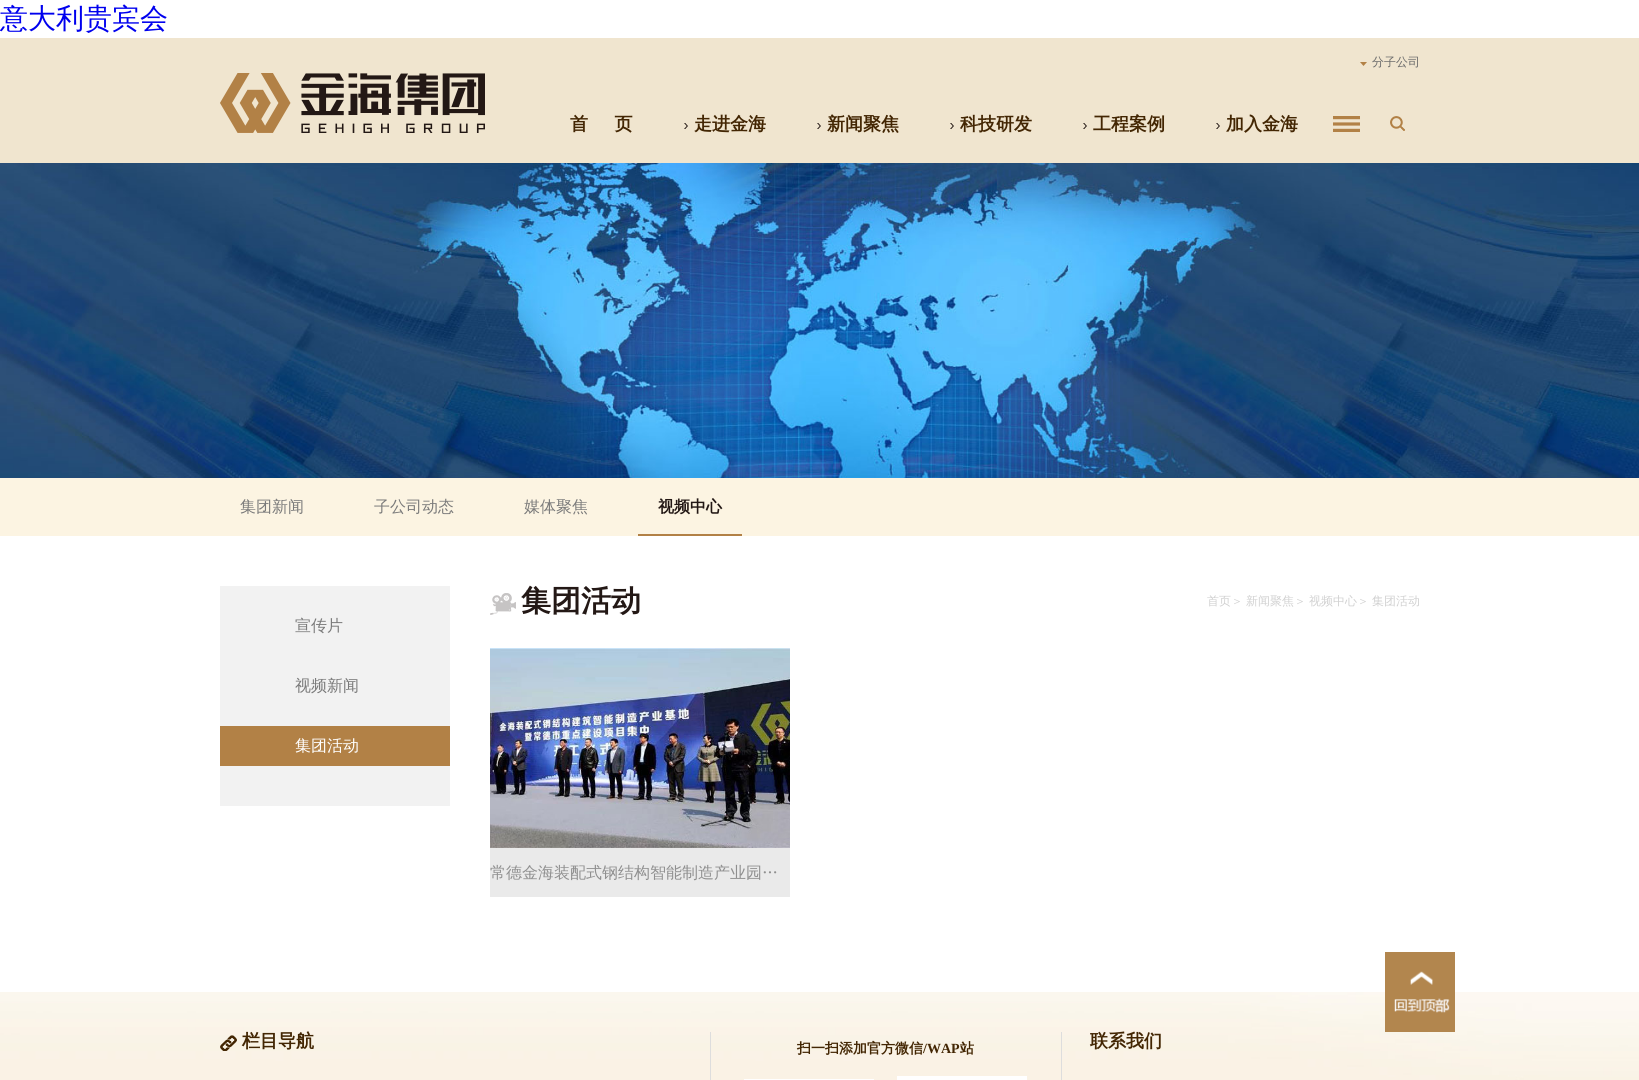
#include <cairo.h>
#include <math.h>
#include <stddef.h>


static void set_color(cairo_t *cr, unsigned color) {
    cairo_set_source_rgb(cr, (color >> 16) / 255.0, (color >> 8 & 255) / 255.0, (color & 255) / 255.0);
}

static void draw_text(cairo_t *cr, double x, double y, const char *s, const char *family, double size, int italic, int bold, unsigned color) {
    cairo_select_font_face(cr, family, italic ? CAIRO_FONT_SLANT_ITALIC : CAIRO_FONT_SLANT_NORMAL,
        bold ? CAIRO_FONT_WEIGHT_BOLD : CAIRO_FONT_WEIGHT_NORMAL);
    cairo_set_font_size(cr, size);
    set_color(cr, color);
    cairo_move_to(cr, x, y);
    cairo_show_text(cr, s);
}

static void draw_spaced(cairo_t *cr, double x, double y, const char *s, double letter, double word) {
    cairo_move_to(cr, x, y);
    while (*s) {
        char ch[5] = {0};
        int n = 0;
        do ch[n++] = *s++; while ((*s & 0xC0) == 0x80);
        cairo_show_text(cr, ch);
        cairo_rel_move_to(cr, letter + word * (*ch == ' '), 0);
    }
}

static void fill_rect(cairo_t *cr, double x, double y, double w, double h, unsigned color) {
    set_color(cr, color);
    cairo_rectangle(cr, x, y, w, h);
    cairo_fill(cr);
}

static void draw_image(cairo_t *cr, const char *path, double x, double y, double w, double h) {
    cairo_surface_t *image = cairo_image_surface_create_from_png(path);
    cairo_save(cr);
    cairo_set_source_surface(cr, image, x, y);
    cairo_rectangle(cr, x, y, w, h);
    cairo_fill(cr);
    cairo_restore(cr);
    cairo_surface_destroy(image);
}

int main(void) {
    cairo_surface_t *surface = cairo_image_surface_create(CAIRO_FORMAT_RGB24, 1639, 1080);
    cairo_t *cr = cairo_create(surface);
    cairo_font_options_t *options = cairo_font_options_create();
    cairo_font_options_set_hint_metrics(options, CAIRO_HINT_METRICS_OFF);
    cairo_font_options_set_hint_style(options, CAIRO_HINT_STYLE_NONE);
    cairo_set_font_options(cr, options);
    cairo_set_miter_limit(cr, 4);
    set_color(cr, 0xFFFFFF);
    cairo_paint(cr);
    draw_text(cr, 0, 28, "意大利贵宾会", "WenQuanYi Zen Hei Medium", 28, 0, 0, 0x0000EE);
    fill_rect(cr, 0, 38, 1639, 125, 0xF0E5CF);
    draw_image(cr, "assets/img1.png", 220, 73, 265, 60);
    draw_image(cr, "assets/img2.png", 1360, 62, 7, 4);
    draw_text(cr, 1372, 66, "分子公司", "WenQuanYi Zen Hei Medium", 12, 0, 0, 0x6B6B6B);
    cairo_select_font_face(cr, "WenQuanYi Zen Hei", CAIRO_FONT_SLANT_NORMAL, CAIRO_FONT_WEIGHT_BOLD);
    cairo_set_font_size(cr, 18);
    set_color(cr, 0x432603);
    draw_spaced(cr, 570, 130, "首      页", 0, -1);
    draw_image(cr, "assets/img3.png", 684, 123, 4, 6);
    draw_text(cr, 694, 130, "走进金海", "WenQuanYi Zen Hei", 18, 0, 1, 0x432603);
    draw_image(cr, "assets/img3.png", 817, 123, 4, 6);
    draw_text(cr, 827, 130, "新闻聚焦", "WenQuanYi Zen Hei", 18, 0, 1, 0x432603);
    draw_image(cr, "assets/img3.png", 950, 123, 4, 6);
    draw_text(cr, 960, 130, "科技研发", "WenQuanYi Zen Hei", 18, 0, 1, 0x432603);
    draw_image(cr, "assets/img3.png", 1083, 123, 4, 6);
    draw_text(cr, 1093, 130, "工程案例", "WenQuanYi Zen Hei", 18, 0, 1, 0x432603);
    draw_image(cr, "assets/img3.png", 1216, 123, 4, 6);
    draw_text(cr, 1226, 130, "加入金海", "WenQuanYi Zen Hei", 18, 0, 1, 0x432603);
    draw_image(cr, "assets/img4.png", 1333, 116, 27, 16);
    draw_image(cr, "assets/img5.png", 1390, 116, 15, 15);
    draw_image(cr, "assets/img6.png", 0, 163, 1639, 315);
    fill_rect(cr, 0, 478, 1639, 58, 0xFCF4E2);
    draw_text(cr, 240, 512, "集团新闻", "WenQuanYi Zen Hei Medium", 16, 0, 0, 0x7A7A7A);
    draw_text(cr, 374, 512, "子公司动态", "WenQuanYi Zen Hei Medium", 16, 0, 0, 0x7A7A7A);
    draw_text(cr, 524, 512, "媒体聚焦", "WenQuanYi Zen Hei Medium", 16, 0, 0, 0x7A7A7A);
    draw_text(cr, 658, 512, "视频中心", "WenQuanYi Zen Hei", 16, 0, 1, 0x231815);
    fill_rect(cr, 638, 534, 104, 2, 0xB28146);
    fill_rect(cr, 220, 586, 230, 220, 0xF2F2F2);
    draw_text(cr, 295, 631, "宣传片", "WenQuanYi Zen Hei Medium", 16, 0, 0, 0x7A7A7A);
    draw_text(cr, 295, 691, "视频新闻", "WenQuanYi Zen Hei Medium", 16, 0, 0, 0x7A7A7A);
    fill_rect(cr, 220, 726, 230, 40, 0xB28146);
    draw_text(cr, 295, 751, "集团活动", "WenQuanYi Zen Hei Medium", 16, 0, 0, 0xFFFFFF);
    draw_image(cr, "assets/img7.png", 490, 593, 26, 22);
    draw_text(cr, 521, 611, "集团活动", "WenQuanYi Zen Hei", 30, 0, 1, 0x231815);
    draw_text(cr, 1207, 605, "首页＞", "WenQuanYi Zen Hei Medium", 12, 0, 0, 0xD1D1D1);
    draw_text(cr, 1246, 605, "新闻聚焦＞", "WenQuanYi Zen Hei Medium", 12, 0, 0, 0xD1D1D1);
    draw_text(cr, 1309, 605, "视频中心＞", "WenQuanYi Zen Hei Medium", 12, 0, 0, 0xD1D1D1);
    draw_text(cr, 1372, 605, "集团活动", "WenQuanYi Zen Hei Medium", 12, 0, 0, 0xD1D1D1);
    draw_image(cr, "assets/img8.png", 490, 648, 300, 200);
    fill_rect(cr, 490, 848, 300, 49, 0xEAEAEA);
    draw_text(cr, 490, 878, "常德金海装配式钢结构智能制造产业园…", "WenQuanYi Zen Hei Medium", 16, 0, 0, 0x8F8F8F);
    draw_image(cr, "assets/img9.png", 0, 992, 1639, 88);
    draw_image(cr, "assets/img10.png", 1385, 952, 70, 80);
    fill_rect(cr, 710, 1032, 1, 48, 0xDDDDDD);
    draw_image(cr, "assets/img11.png", 220, 1035, 17, 16);
    draw_text(cr, 242, 1047, "栏目导航", "WenQuanYi Zen Hei", 18, 0, 1, 0x432603);
    fill_rect(cr, 1061, 1032, 1, 48, 0xDDDDDD);
    draw_text(cr, 797, 1053, "扫一扫添加官方微信", "WenQuanYi Zen Hei", 14, 0, 1, 0x432603);
    draw_text(cr, 923, 1053, "/WAP", "Liberation Serif", 14, 0, 1, 0x432603);
    draw_text(cr, 960, 1053, "站", "WenQuanYi Zen Hei", 14, 0, 1, 0x432603);
    fill_rect(cr, 744, 1079, 130, 1, 0xFFFFFF);
    fill_rect(cr, 897, 1076, 130, 4, 0xFFFFFF);
    draw_text(cr, 1090, 1047, "联系我们", "WenQuanYi Zen Hei", 18, 0, 1, 0x432603);
    cairo_surface_write_to_png(surface, "output.png");
    cairo_font_options_destroy(options);
    cairo_destroy(cr);
    cairo_surface_destroy(surface);
    return 0;
}
